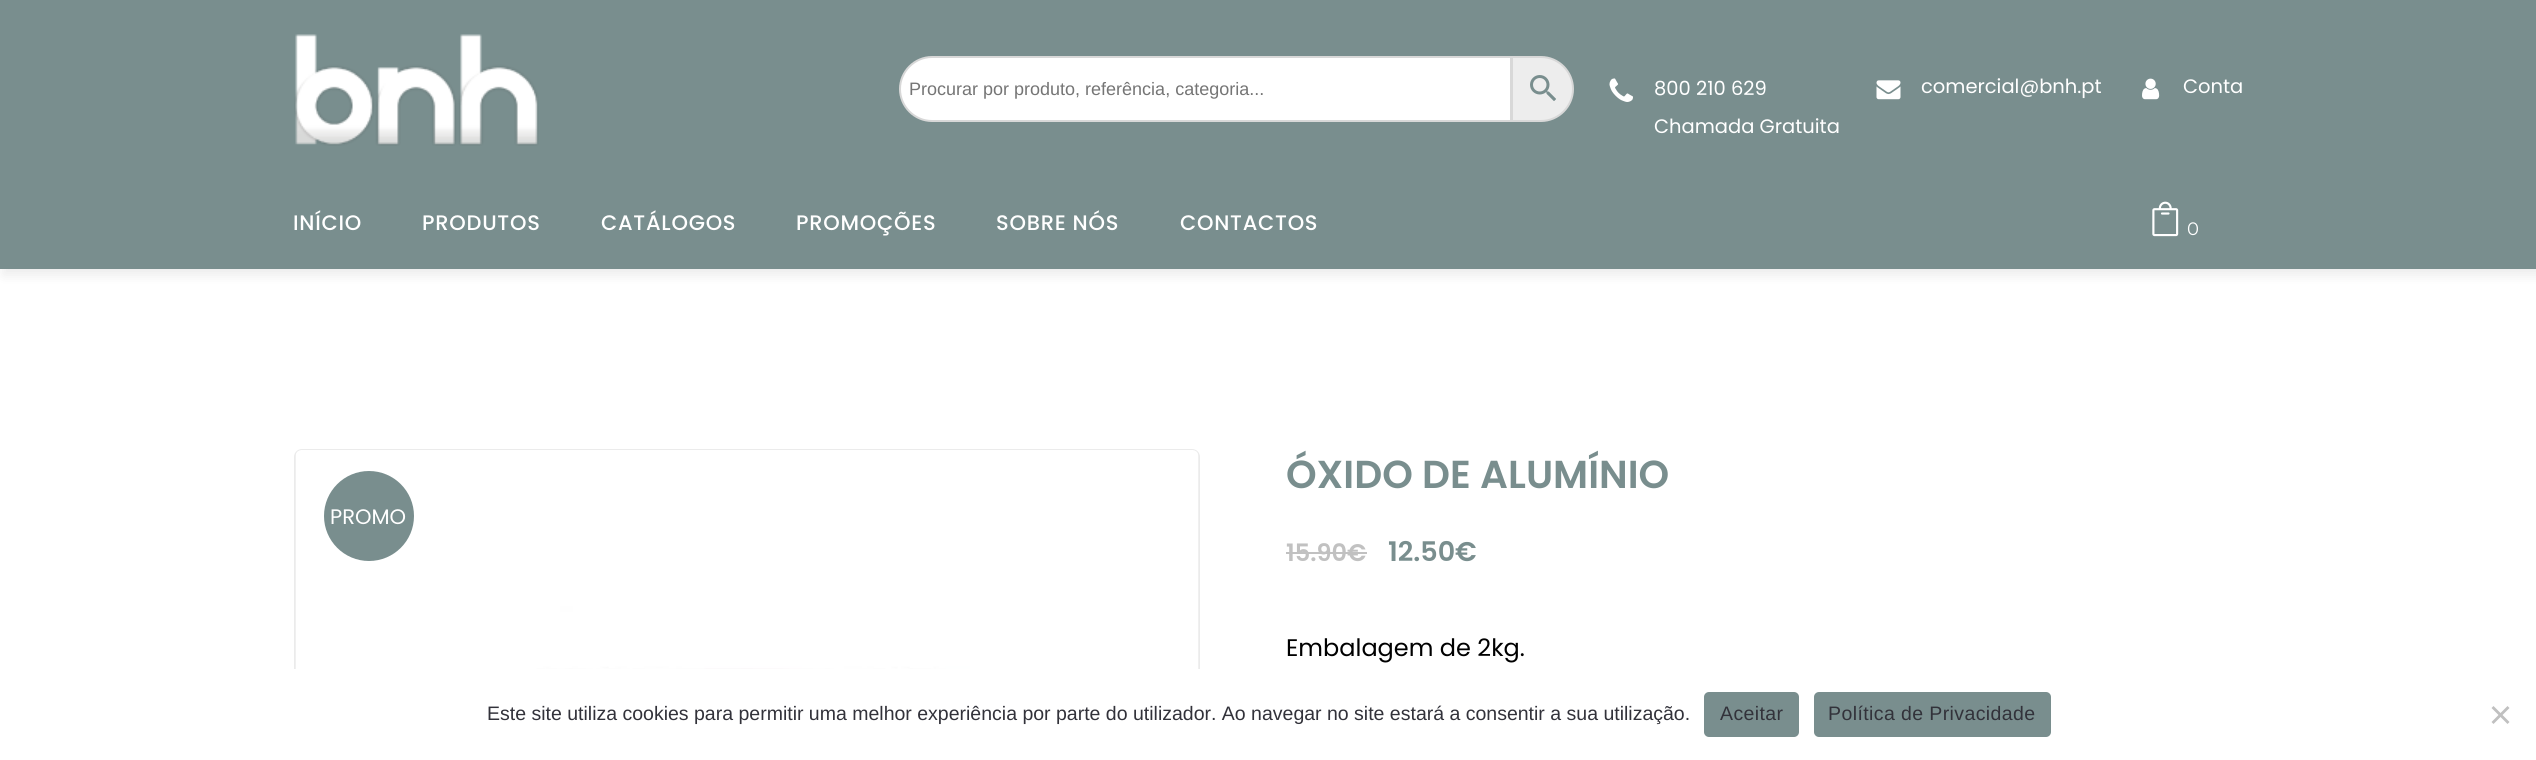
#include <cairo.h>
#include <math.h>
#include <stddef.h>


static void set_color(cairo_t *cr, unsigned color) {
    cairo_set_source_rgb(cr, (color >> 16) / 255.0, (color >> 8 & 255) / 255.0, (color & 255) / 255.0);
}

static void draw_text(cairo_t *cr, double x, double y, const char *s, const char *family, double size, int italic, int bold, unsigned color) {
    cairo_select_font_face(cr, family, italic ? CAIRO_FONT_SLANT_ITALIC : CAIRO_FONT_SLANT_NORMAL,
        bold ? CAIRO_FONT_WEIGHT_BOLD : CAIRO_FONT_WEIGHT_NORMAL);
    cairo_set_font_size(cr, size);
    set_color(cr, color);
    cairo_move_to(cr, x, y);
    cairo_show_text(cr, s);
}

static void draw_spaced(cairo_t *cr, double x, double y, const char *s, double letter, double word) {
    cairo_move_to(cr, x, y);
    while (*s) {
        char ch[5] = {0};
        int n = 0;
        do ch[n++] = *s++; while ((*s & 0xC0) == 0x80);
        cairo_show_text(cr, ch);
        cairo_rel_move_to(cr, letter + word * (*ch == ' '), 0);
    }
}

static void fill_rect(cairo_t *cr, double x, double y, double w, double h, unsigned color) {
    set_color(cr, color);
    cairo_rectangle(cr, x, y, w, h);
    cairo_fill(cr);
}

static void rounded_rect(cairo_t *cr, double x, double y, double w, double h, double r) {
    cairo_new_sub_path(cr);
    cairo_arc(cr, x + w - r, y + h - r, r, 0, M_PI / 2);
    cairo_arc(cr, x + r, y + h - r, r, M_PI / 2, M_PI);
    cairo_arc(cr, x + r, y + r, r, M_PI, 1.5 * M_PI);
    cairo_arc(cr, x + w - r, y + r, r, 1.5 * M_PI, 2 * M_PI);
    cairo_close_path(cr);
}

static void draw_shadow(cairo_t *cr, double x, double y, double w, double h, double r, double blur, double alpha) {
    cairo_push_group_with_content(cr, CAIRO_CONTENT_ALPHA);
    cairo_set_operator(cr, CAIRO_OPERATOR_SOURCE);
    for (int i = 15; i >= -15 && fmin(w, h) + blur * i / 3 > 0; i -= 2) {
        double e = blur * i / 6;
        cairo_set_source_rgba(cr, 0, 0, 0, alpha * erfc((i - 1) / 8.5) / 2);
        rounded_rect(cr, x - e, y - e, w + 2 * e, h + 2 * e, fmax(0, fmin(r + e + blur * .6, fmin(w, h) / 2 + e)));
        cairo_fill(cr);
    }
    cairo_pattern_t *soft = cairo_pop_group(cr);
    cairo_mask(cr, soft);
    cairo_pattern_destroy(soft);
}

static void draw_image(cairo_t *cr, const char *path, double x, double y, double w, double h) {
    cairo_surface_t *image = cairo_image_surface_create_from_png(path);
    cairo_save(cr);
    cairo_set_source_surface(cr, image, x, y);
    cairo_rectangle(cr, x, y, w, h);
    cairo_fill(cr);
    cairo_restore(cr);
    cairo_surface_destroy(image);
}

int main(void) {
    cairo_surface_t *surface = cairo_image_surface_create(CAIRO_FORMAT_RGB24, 2536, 760);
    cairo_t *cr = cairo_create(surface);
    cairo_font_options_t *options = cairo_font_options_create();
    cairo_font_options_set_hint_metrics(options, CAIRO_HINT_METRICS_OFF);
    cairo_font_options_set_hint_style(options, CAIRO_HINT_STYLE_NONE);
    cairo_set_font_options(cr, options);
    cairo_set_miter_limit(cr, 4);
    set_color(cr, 0xFFFFFF);
    cairo_paint(cr);
    set_color(cr, 0x000000);
    draw_shadow(cr, 3, 6, 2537, 269, 0, 6, 0.08);
    fill_rect(cr, 0, 0, 2536, 269, 0x798E8E);
    draw_image(cr, "assets/img1.png", 294, 34, 245, 112);
    set_color(cr, 0xEDEDED);
    cairo_new_path(cr);
    cairo_move_to(cr, 1512, 57);
    cairo_line_to(cr, 1541, 57);
    cairo_curve_to(cr, 1558.5, 57, 1573, 71.5, 1573, 89);
    cairo_curve_to(cr, 1573, 106.5, 1558.5, 121, 1541, 121);
    cairo_line_to(cr, 1512, 121);
    cairo_close_path(cr);
    cairo_fill_preserve(cr);
    set_color(cr, 0xD8D8D8);
    cairo_stroke(cr);
    set_color(cr, 0xFFFFFF);
    cairo_new_path(cr);
    cairo_move_to(cr, 932, 57);
    cairo_line_to(cr, 1511, 57);
    cairo_line_to(cr, 1511, 121);
    cairo_line_to(cr, 932, 121);
    cairo_curve_to(cr, 914.5, 121, 900, 106.5, 900, 89);
    cairo_curve_to(cr, 900, 71.5, 914.5, 57, 932, 57);
    cairo_close_path(cr);
    cairo_fill_preserve(cr);
    set_color(cr, 0xD8D8D8);
    cairo_stroke(cr);
    draw_text(cr, 909, 95, "Procurar por produto, referência, categoria...", "Liberation Sans", 18, 0, 0, 0x757575);
    draw_image(cr, "assets/img2.png", 1530, 75, 26, 26);
    draw_image(cr, "assets/img3.png", 1609, 78, 24, 24);
    draw_text(cr, 1654, 95, "800 210 629", "Poppins", 19.5, 0, 0, 0xFFFFFF);
    draw_text(cr, 1654, 133, "Chamada Gratuita", "Poppins", 19.5, 0, 0, 0xFFFFFF);
    draw_image(cr, "assets/img4.png", 1876, 80, 25, 20);
    draw_text(cr, 1921, 93, "comercial@bnh.pt", "Poppins", 19.5, 0, 0, 0xFFFFFF);
    draw_image(cr, "assets/img5.png", 2142, 78, 18, 22);
    draw_text(cr, 2183, 93, "Conta", "Poppins", 19.5, 0, 0, 0xFFFFFF);
    cairo_select_font_face(cr, "Poppins Medium", CAIRO_FONT_SLANT_NORMAL, CAIRO_FONT_WEIGHT_NORMAL);
    cairo_set_font_size(cr, 21);
    draw_spaced(cr, 293, 230, "INÍCIO", 0.75, 0);
    draw_spaced(cr, 422, 230, "PRODUTOS", 0.75, 0);
    draw_spaced(cr, 601, 230, "CATÁLOGOS", 0.75, 0);
    draw_spaced(cr, 796, 230, "PROMOÇÕES", 0.75, 0);
    draw_spaced(cr, 996, 230, "SOBRE NÓS", 0.75, 0);
    draw_spaced(cr, 1180, 230, "CONTACTOS", 0.75, 0);
    draw_image(cr, "assets/img6.png", 2152, 201, 27, 36);
    draw_text(cr, 2187, 235, "0", "Montserrat", 18, 0, 0, 0xFFFFFF);
    rounded_rect(cr, 295, 450, 904, 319, 7);
    set_color(cr, 0xEBEBEB);
    cairo_stroke(cr);
    draw_image(cr, "assets/img7.png", 295, 450, 904, 219);
    draw_text(cr, 1286, 488, "ÓXIDO DE ALUMÍNIO", "Poppins SemiBold", 39, 0, 0, 0x798E8E);
    draw_text(cr, 1286, 561, "15.90€", "Poppins SemiBold", 24, 0, 0, 0xC1C1C1);
    fill_rect(cr, 1286, 552, 81, 2, 0xC1C1C1);
    draw_text(cr, 1388, 561, "12.50€", "Poppins SemiBold", 27, 0, 0, 0x798E8E);
    draw_text(cr, 1286, 656, "Embalagem de 2kg.", "Poppins", 24, 0, 0, 0x000000);
    set_color(cr, 0x798E8E);
    cairo_new_path(cr);
    cairo_arc(cr, 369, 516, 45, 0, 2 * M_PI);
    cairo_fill(cr);
    draw_text(cr, 330, 524, "PROMO", "Poppins", 21, 0, 0, 0xFFFFFF);
    fill_rect(cr, 294, 669, 906, 91, 0xFFFFFF);
    draw_text(cr, 487, 720, "Este site utiliza cookies para permitir uma melhor experiência por parte do utilizador. Ao navegar no site estará a consentir a sua utilização.", "Liberation Sans", 19.5, 0, 0, 0x32323A);
    set_color(cr, 0x798E8E);
    rounded_rect(cr, 1704, 692, 95, 45, 5);
    cairo_fill(cr);
    set_color(cr, 0x32323A);
    draw_spaced(cr, 1720, 720, "Aceitar", 0.4, 0);
    set_color(cr, 0x798E8E);
    rounded_rect(cr, 1814, 692, 237, 45, 5);
    cairo_fill(cr);
    set_color(cr, 0x32323A);
    draw_spaced(cr, 1828, 720, "Política de Privacidade", 0.4, 0);
    set_color(cr, 0xC0C0C0);
    cairo_new_path(cr);
    cairo_move_to(cr, 2507.5, 706);
    cairo_line_to(cr, 2509.5, 708);
    cairo_line_to(cr, 2493.5, 724);
    cairo_line_to(cr, 2491.5, 722);
    cairo_close_path(cr);
    cairo_fill(cr);
    cairo_new_path(cr);
    cairo_move_to(cr, 2491.5, 708);
    cairo_line_to(cr, 2493.5, 706);
    cairo_line_to(cr, 2509.5, 722);
    cairo_line_to(cr, 2507.5, 724);
    cairo_close_path(cr);
    cairo_fill(cr);
    cairo_surface_write_to_png(surface, "output.png");
    cairo_font_options_destroy(options);
    cairo_destroy(cr);
    cairo_surface_destroy(surface);
    return 0;
}
